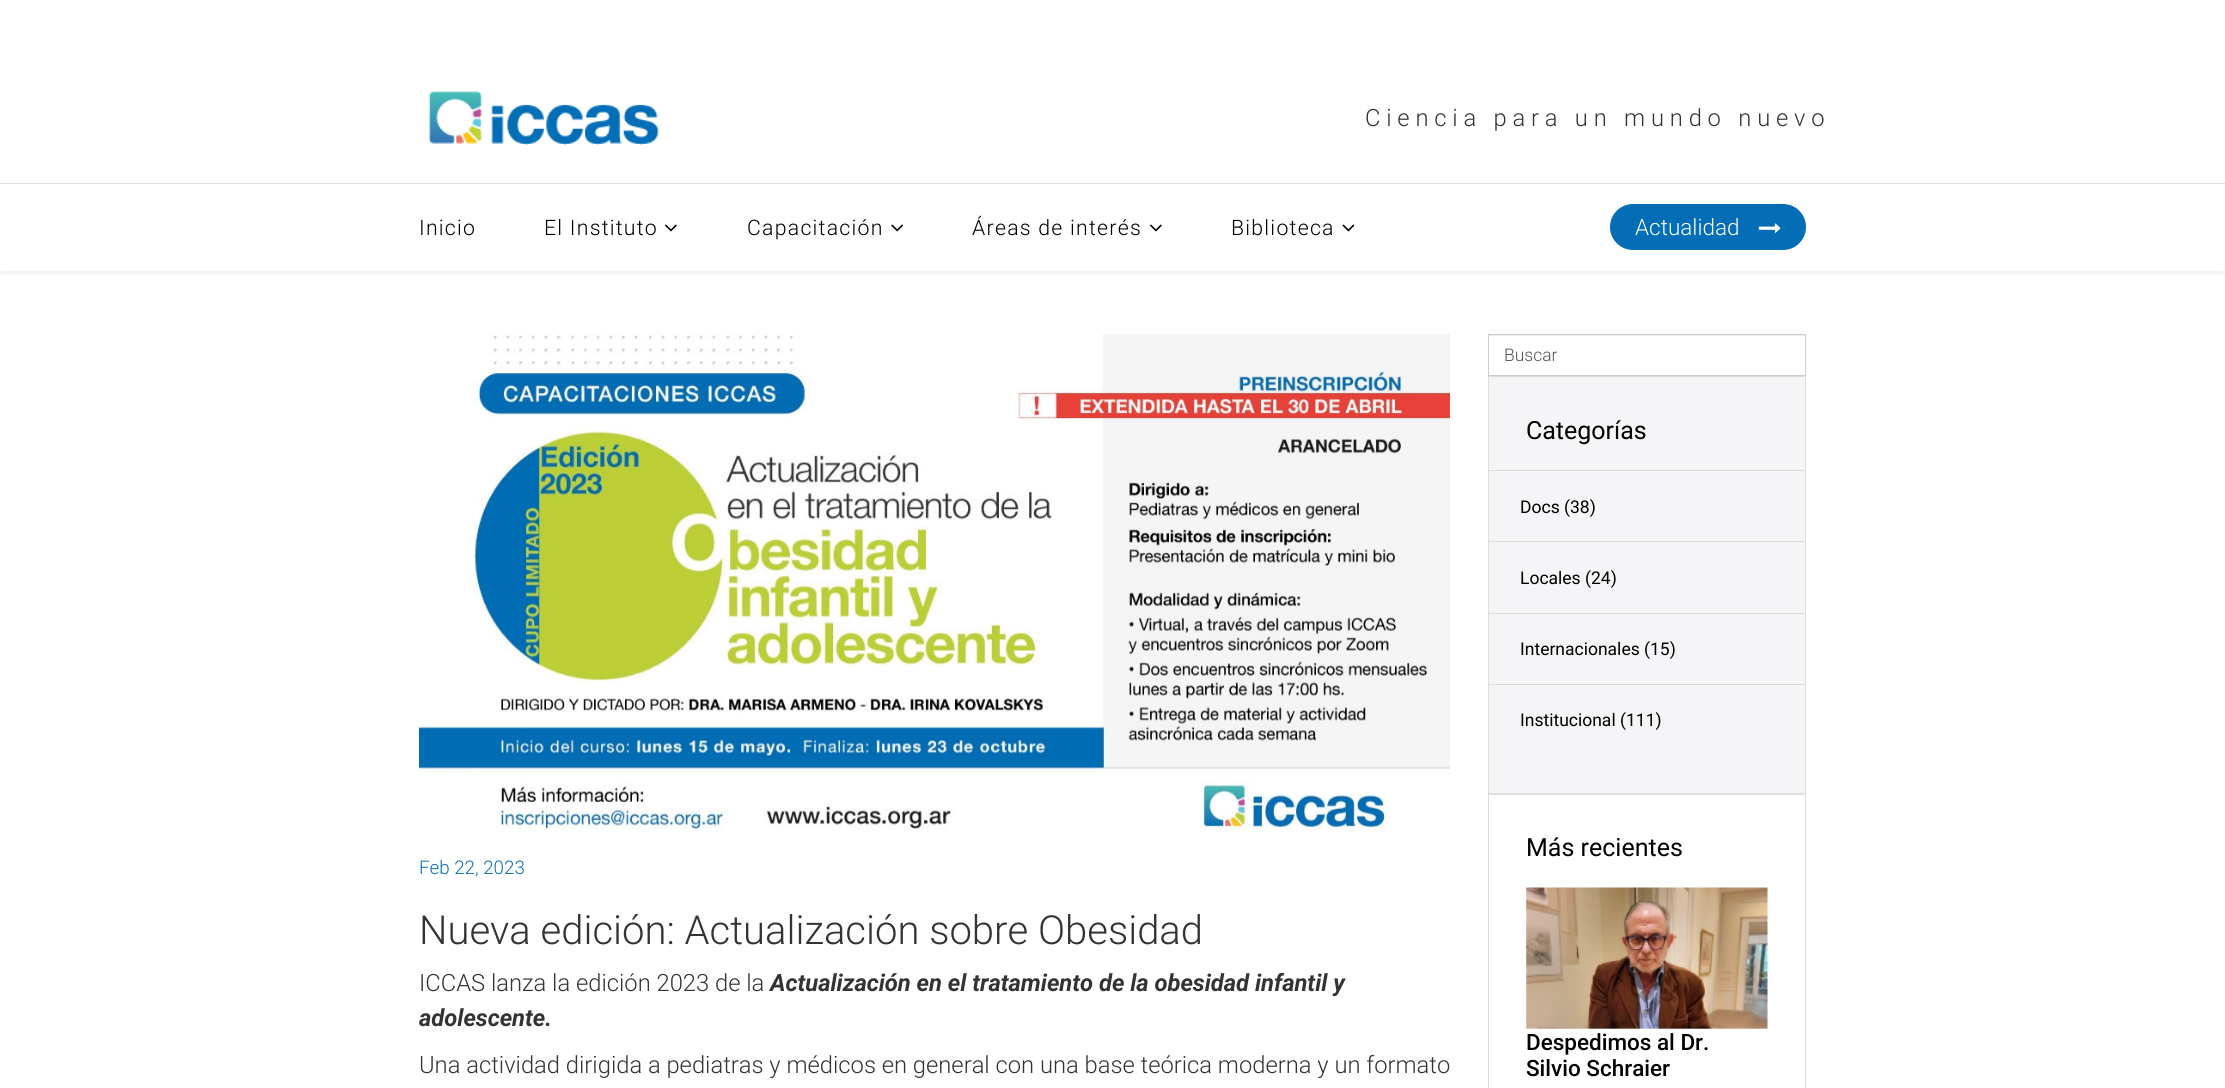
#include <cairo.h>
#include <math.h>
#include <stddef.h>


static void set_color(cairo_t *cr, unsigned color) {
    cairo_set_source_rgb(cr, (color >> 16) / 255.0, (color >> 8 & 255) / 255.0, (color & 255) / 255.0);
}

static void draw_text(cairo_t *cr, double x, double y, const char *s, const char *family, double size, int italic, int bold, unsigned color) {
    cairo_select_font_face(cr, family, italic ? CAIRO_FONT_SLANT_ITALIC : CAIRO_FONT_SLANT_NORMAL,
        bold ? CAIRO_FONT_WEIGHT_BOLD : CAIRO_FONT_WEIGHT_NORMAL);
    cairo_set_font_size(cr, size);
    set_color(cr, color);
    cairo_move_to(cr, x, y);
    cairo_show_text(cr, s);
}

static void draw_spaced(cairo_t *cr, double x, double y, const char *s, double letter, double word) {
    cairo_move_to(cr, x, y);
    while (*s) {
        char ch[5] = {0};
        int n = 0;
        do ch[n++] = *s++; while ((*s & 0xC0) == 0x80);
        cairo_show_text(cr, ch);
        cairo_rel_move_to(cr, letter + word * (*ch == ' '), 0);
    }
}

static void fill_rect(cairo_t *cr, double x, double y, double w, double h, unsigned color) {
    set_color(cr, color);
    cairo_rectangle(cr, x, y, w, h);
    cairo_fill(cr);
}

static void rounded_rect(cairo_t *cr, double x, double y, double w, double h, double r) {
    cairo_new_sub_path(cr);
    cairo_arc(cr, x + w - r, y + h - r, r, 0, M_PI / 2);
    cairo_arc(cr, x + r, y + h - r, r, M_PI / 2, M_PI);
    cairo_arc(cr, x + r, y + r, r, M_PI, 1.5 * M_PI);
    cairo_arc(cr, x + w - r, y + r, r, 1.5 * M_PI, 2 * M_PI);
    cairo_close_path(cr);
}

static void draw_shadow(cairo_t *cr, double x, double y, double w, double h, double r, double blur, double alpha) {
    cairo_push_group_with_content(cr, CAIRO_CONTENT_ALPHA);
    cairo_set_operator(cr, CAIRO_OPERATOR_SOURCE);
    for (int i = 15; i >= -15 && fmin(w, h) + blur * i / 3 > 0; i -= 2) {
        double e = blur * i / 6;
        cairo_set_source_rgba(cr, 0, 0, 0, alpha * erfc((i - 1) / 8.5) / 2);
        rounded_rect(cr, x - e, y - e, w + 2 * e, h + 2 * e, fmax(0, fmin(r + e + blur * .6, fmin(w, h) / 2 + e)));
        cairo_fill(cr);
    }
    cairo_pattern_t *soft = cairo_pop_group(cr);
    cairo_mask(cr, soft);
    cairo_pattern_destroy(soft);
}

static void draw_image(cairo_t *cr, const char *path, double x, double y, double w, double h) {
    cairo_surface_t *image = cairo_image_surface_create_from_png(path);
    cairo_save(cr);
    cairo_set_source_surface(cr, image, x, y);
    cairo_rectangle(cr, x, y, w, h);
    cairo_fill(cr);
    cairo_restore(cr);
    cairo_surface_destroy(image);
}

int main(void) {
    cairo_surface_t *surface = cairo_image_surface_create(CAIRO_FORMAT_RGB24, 2225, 1088);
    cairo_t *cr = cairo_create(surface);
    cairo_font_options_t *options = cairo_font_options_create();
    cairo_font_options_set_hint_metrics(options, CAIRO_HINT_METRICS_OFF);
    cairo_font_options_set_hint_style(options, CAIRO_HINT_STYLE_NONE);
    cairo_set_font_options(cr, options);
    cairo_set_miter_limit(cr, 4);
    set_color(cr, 0xFFFFFF);
    cairo_paint(cr);
    draw_image(cr, "assets/img1.png", 428, 91, 231, 55);
    draw_text(cr, 1365, 126, "C i e n c i a   p a r a   u n   m u n d o   n u e v o", "Roboto Light", 23.75, 0, 0, 0x333333);
    cairo_save(cr);
    cairo_rectangle(cr, 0, 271, 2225, 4);
    cairo_clip(cr);
    set_color(cr, 0x000000);
    draw_shadow(cr, 0, 186, 2225, 89, 0, 2, 0.05);
    cairo_restore(cr);
    fill_rect(cr, 0, 183, 2225, 1, 0xDDDDDD);
    cairo_set_font_size(cr, 21.25);
    set_color(cr, 0x000000);
    draw_spaced(cr, 419, 235, "Inicio", 1.25, 0);
    draw_spaced(cr, 544, 235, "El Instituto", 1.25, 0);
    draw_image(cr, "assets/img2.png", 665, 224, 12, 8);
    draw_spaced(cr, 747, 235, "Capacitación", 1.25, 0);
    draw_image(cr, "assets/img3.png", 891, 224, 12, 8);
    draw_spaced(cr, 972, 235, "Áreas de interés", 1.25, 0);
    draw_image(cr, "assets/img2.png", 1150, 224, 12, 8);
    draw_spaced(cr, 1231, 235, "Biblioteca", 1.25, 0);
    draw_image(cr, "assets/img4.png", 1342, 224, 13, 8);
    set_color(cr, 0x036DB6);
    rounded_rect(cr, 1610, 204, 196, 46, 23);
    cairo_fill(cr);
    draw_text(cr, 1635, 235, "Actualidad", "Roboto Light", 22.5, 0, 0, 0xFFFFFF);
    draw_image(cr, "assets/img5.png", 1758, 223, 23, 10);
    draw_image(cr, "assets/img6.png", 419, 334, 1031, 496);
    draw_text(cr, 419, 874, "Feb 22, 2023", "Roboto Light", 18.75, 0, 0, 0x036DB6);
    draw_text(cr, 419, 944, "Nueva edición: Actualización sobre Obesidad", "Roboto Light", 40, 0, 0, 0x333333);
    draw_text(cr, 419, 991, "ICCAS lanza la edición 2023 de la", "Roboto Light", 23.75, 0, 0, 0x333333);
    draw_text(cr, 770, 991, "Actualización en el tratamiento de la obesidad infantil y", "Roboto", 23.75, 1, 1, 0x333333);
    draw_text(cr, 419, 1026, "adolescente.", "Roboto", 23.75, 1, 1, 0x333333);
    draw_text(cr, 419, 1073, "Una actividad dirigida a pediatras y médicos en general con una base teórica moderna y un formato", "Roboto Light", 23.75, 0, 0, 0x333333);
    fill_rect(cr, 1489, 335, 316, 1, 0xECECEC);
    cairo_rectangle(cr, 1488.5, 334.5, 317, 41);
    set_color(cr, 0xCCCCCC);
    cairo_set_line_width(cr, 1);
    cairo_stroke(cr);
    draw_text(cr, 1504, 361, "Buscar", "Roboto Light", 17.5, 0, 0, 0x555555);
    set_color(cr, 0xF5F5F8);
    cairo_rectangle(cr, 1488.5, 376.5, 317, 417);
    cairo_fill_preserve(cr);
    set_color(cr, 0xDDDDDD);
    cairo_stroke(cr);
    draw_text(cr, 1526, 439, "Categorías", "Roboto", 25, 0, 0, 0x000000);
    fill_rect(cr, 1489, 470, 316, 1, 0xDDDDDD);
    fill_rect(cr, 1489, 541, 316, 1, 0xDDDDDD);
    draw_text(cr, 1520, 513, "Docs (38)", "Roboto", 17.5, 0, 0, 0x000000);
    fill_rect(cr, 1489, 613, 316, 1, 0xDDDDDD);
    draw_text(cr, 1520, 584, "Locales (24)", "Roboto", 17.5, 0, 0, 0x000000);
    fill_rect(cr, 1489, 684, 316, 1, 0xDDDDDD);
    draw_text(cr, 1520, 655, "Internacionales (15)", "Roboto", 17.5, 0, 0, 0x000000);
    draw_text(cr, 1520, 726, "Institucional (111)", "Roboto", 17.5, 0, 0, 0x000000);
    cairo_rectangle(cr, 1488.5, 794.5, 317, 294);
    set_color(cr, 0xDDDDDD);
    cairo_stroke(cr);
    draw_text(cr, 1526, 856, "Más recientes", "Roboto", 25, 0, 0, 0x000000);
    draw_image(cr, "assets/img7.png", 1526, 887, 242, 142);
    draw_text(cr, 1526, 1050, "Despedimos al Dr.", "Roboto Medium", 22.5, 0, 0, 0x000000);
    draw_text(cr, 1526, 1076, "Silvio Schraier", "Roboto Medium", 22.5, 0, 0, 0x000000);
    cairo_surface_write_to_png(surface, "output.png");
    cairo_font_options_destroy(options);
    cairo_destroy(cr);
    cairo_surface_destroy(surface);
    return 0;
}
